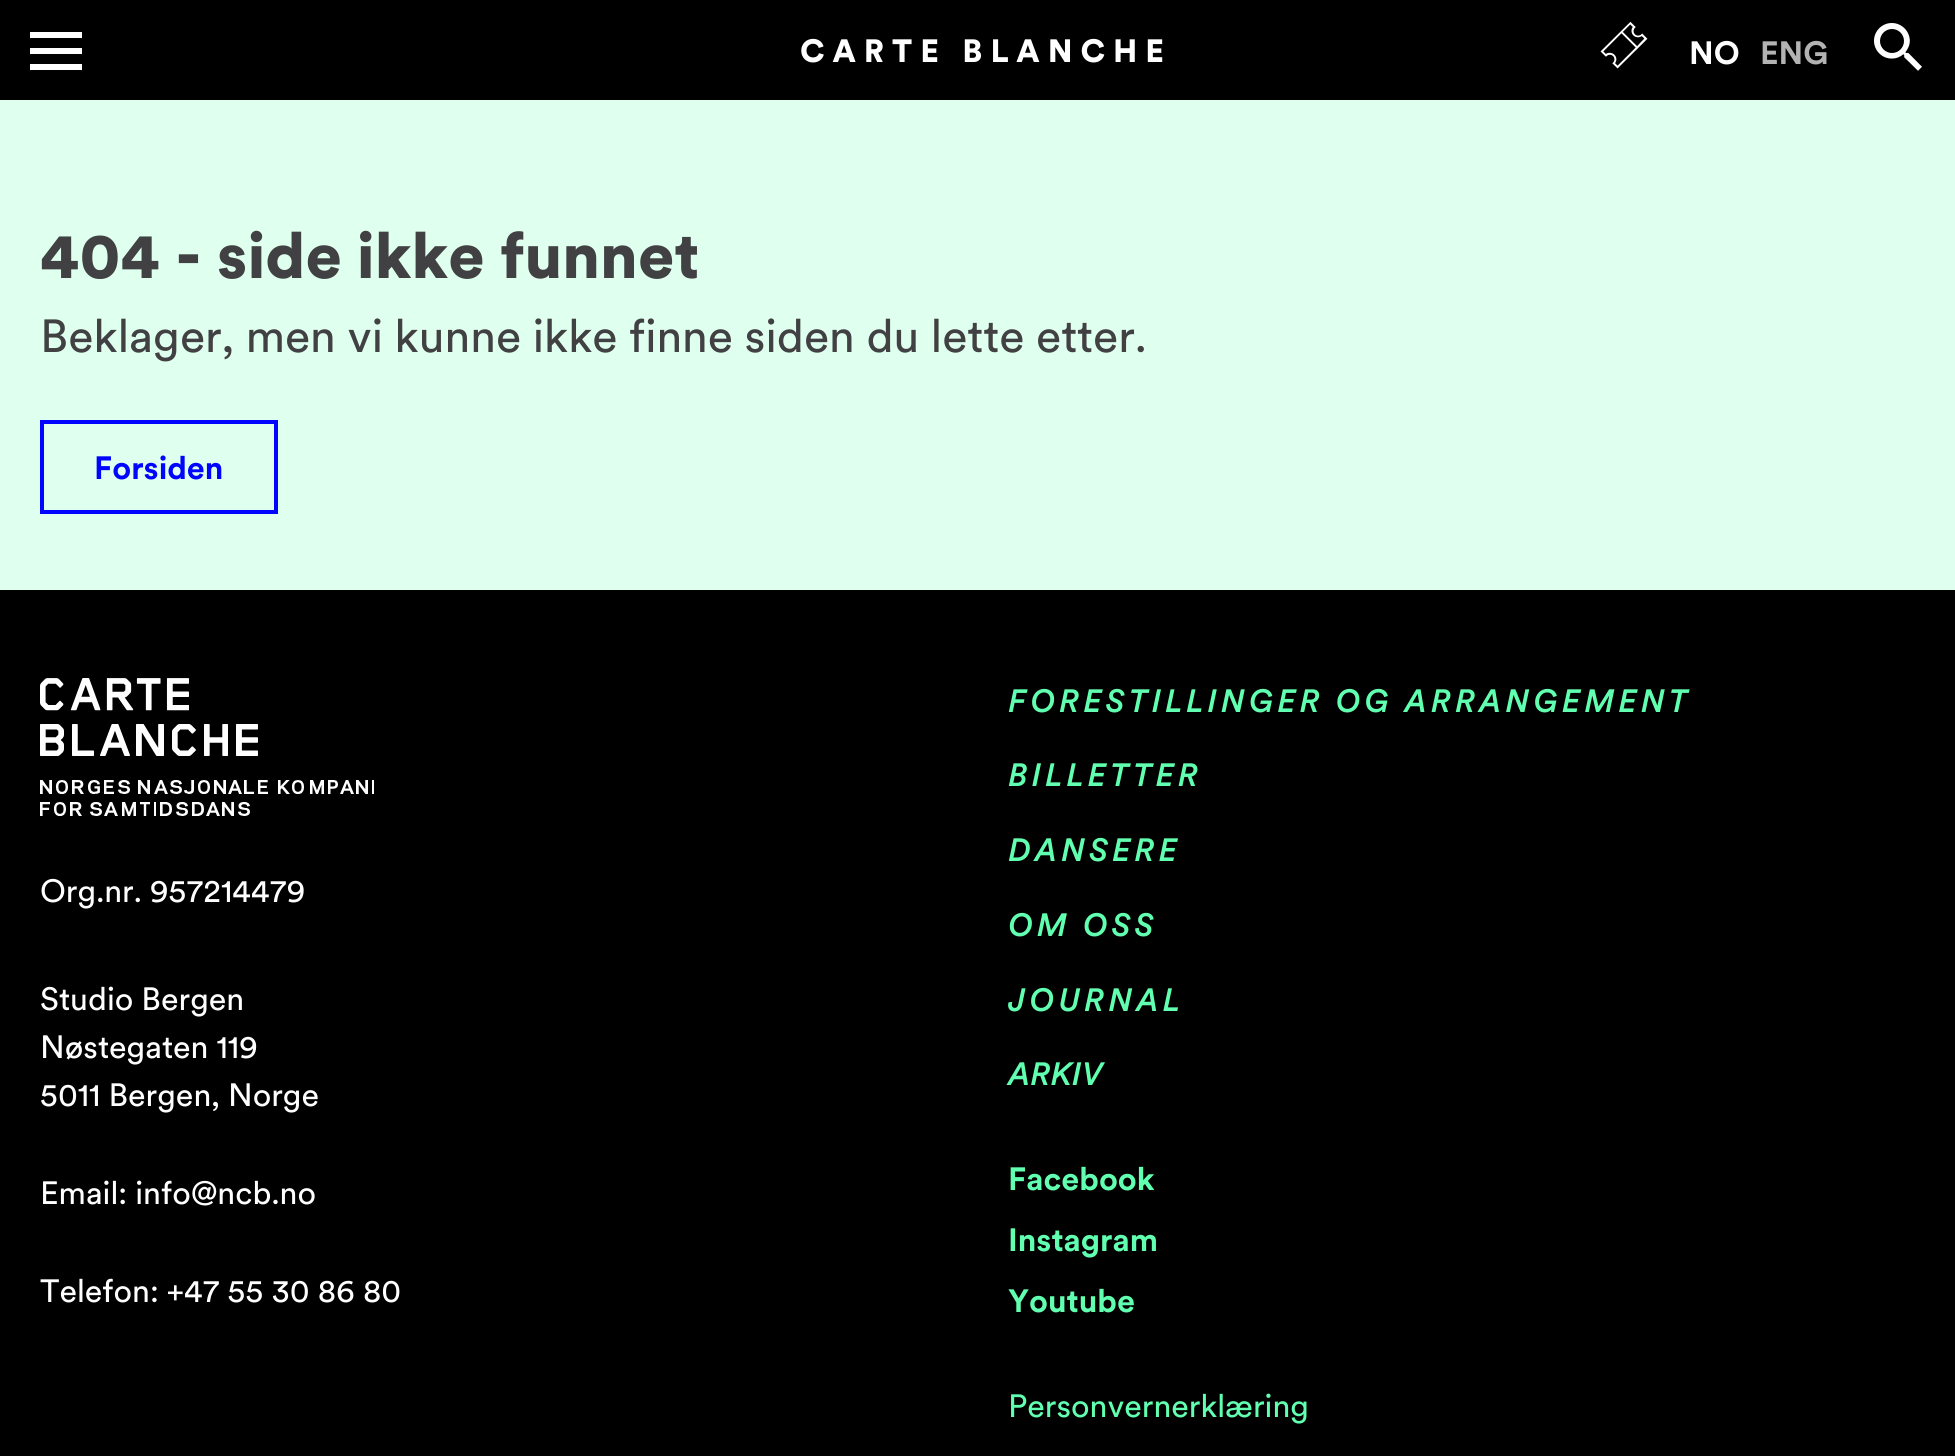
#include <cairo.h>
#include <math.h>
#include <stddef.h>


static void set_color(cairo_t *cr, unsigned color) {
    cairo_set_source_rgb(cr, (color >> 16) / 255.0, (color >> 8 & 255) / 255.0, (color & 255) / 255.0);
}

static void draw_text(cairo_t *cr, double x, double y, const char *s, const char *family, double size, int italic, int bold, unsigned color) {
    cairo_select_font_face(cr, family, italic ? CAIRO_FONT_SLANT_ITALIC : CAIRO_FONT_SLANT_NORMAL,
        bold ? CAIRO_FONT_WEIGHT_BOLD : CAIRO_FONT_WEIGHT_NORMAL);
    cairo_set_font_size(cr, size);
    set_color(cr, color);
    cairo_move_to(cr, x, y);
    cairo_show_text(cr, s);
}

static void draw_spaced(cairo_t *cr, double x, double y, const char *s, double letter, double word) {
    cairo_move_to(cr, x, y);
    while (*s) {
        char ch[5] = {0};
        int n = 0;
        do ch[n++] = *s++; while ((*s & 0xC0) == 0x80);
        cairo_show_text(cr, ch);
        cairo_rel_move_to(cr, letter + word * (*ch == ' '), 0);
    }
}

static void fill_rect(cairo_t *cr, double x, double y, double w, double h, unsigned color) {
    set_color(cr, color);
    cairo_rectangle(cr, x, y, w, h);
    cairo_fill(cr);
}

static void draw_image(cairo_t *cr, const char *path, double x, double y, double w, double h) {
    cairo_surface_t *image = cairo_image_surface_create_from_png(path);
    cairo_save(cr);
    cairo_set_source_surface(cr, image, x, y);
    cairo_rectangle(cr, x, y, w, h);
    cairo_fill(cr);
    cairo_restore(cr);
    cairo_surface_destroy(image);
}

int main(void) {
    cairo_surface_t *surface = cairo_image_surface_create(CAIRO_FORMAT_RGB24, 1955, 1456);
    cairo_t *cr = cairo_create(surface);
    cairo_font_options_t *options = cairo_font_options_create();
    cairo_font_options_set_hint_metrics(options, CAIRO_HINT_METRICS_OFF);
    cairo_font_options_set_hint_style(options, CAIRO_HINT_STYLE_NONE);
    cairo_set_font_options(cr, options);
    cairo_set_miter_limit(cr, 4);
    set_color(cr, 0xDFFFEF);
    cairo_paint(cr);
    fill_rect(cr, 0, 0, 1955, 100, 0x000000);
    fill_rect(cr, 30, 32, 52, 6, 0xFFFFFF);
    fill_rect(cr, 30, 48, 52, 6, 0xFFFFFF);
    fill_rect(cr, 30, 64, 52, 6, 0xFFFFFF);
    cairo_select_font_face(cr, "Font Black", CAIRO_FONT_SLANT_NORMAL, CAIRO_FONT_WEIGHT_NORMAL);
    cairo_set_font_size(cr, 32);
    draw_spaced(cr, 800, 62, "CARTE BLANCHE", 8, 0);
    draw_image(cr, "assets/img1.png", 1600, 21, 48, 48);
    draw_text(cr, 1689, 64, "NO", "Font", 32, 0, 1, 0xFFFFFF);
    draw_text(cr, 1760, 64, "ENG", "Font", 32, 0, 1, 0xB3B3B3);
    draw_image(cr, "assets/img2.png", 1874, 23, 48, 48);
    draw_text(cr, 40, 278, "404 - side ikke funnet", "Font Black", 64, 0, 0, 0x414042);
    draw_text(cr, 40, 352, "Beklager, men vi kunne ikke finne siden du lette etter.", "Font", 46, 0, 0, 0x414042);
    cairo_rectangle(cr, 42, 422, 234, 90);
    set_color(cr, 0x0005FF);
    cairo_set_line_width(cr, 4);
    cairo_stroke(cr);
    draw_text(cr, 94, 479, "Forsiden", "Font", 32, 0, 1, 0x0005FF);
    fill_rect(cr, 0, 590, 1955, 866, 0x000000);
    draw_image(cr, "assets/img3.png", 40, 678, 334, 138);
    draw_text(cr, 40, 902, "Org.nr. 957214479", "Font", 32, 0, 0, 0xFFFFFF);
    draw_text(cr, 40, 1010, "Studio Bergen", "Font", 32, 0, 0, 0xFFFFFF);
    draw_text(cr, 40, 1058, "Nøstegaten 119", "Font", 32, 0, 0, 0xFFFFFF);
    draw_text(cr, 40, 1106, "5011 Bergen, Norge", "Font", 32, 0, 0, 0xFFFFFF);
    draw_text(cr, 40, 1204, "Email: info@ncb.no", "Font", 32, 0, 0, 0xFFFFFF);
    draw_text(cr, 40, 1302, "Telefon: +47 55 30 86 80", "Font", 32, 0, 0, 0xFFFFFF);
    cairo_select_font_face(cr, "Font Medium", CAIRO_FONT_SLANT_ITALIC, CAIRO_FONT_WEIGHT_NORMAL);
    set_color(cr, 0x61FFB0);
    draw_spaced(cr, 1008, 712, "FORESTILLINGER OG ARRANGEMENT", 4, 0);
    draw_spaced(cr, 1008, 786, "BILLETTER", 4, 0);
    draw_spaced(cr, 1008, 861, "DANSERE", 4, 0);
    draw_spaced(cr, 1008, 936, "OM OSS", 4, 0);
    draw_spaced(cr, 1008, 1011, "JOURNAL", 4, 0);
    draw_text(cr, 1008, 1085, "ARKIV", "Font Medium", 32, 1, 0, 0x61FFB0);
    draw_text(cr, 1008, 1190, "Facebook", "Font", 32, 0, 1, 0x61FFB0);
    draw_text(cr, 1008, 1251, "Instagram", "Font", 32, 0, 1, 0x61FFB0);
    draw_text(cr, 1008, 1312, "Youtube", "Font", 32, 0, 1, 0x61FFB0);
    draw_text(cr, 1008, 1417, "Personvernerklæring", "Font", 32, 0, 0, 0x61FFB0);
    cairo_surface_write_to_png(surface, "output.png");
    cairo_font_options_destroy(options);
    cairo_destroy(cr);
    cairo_surface_destroy(surface);
    return 0;
}
